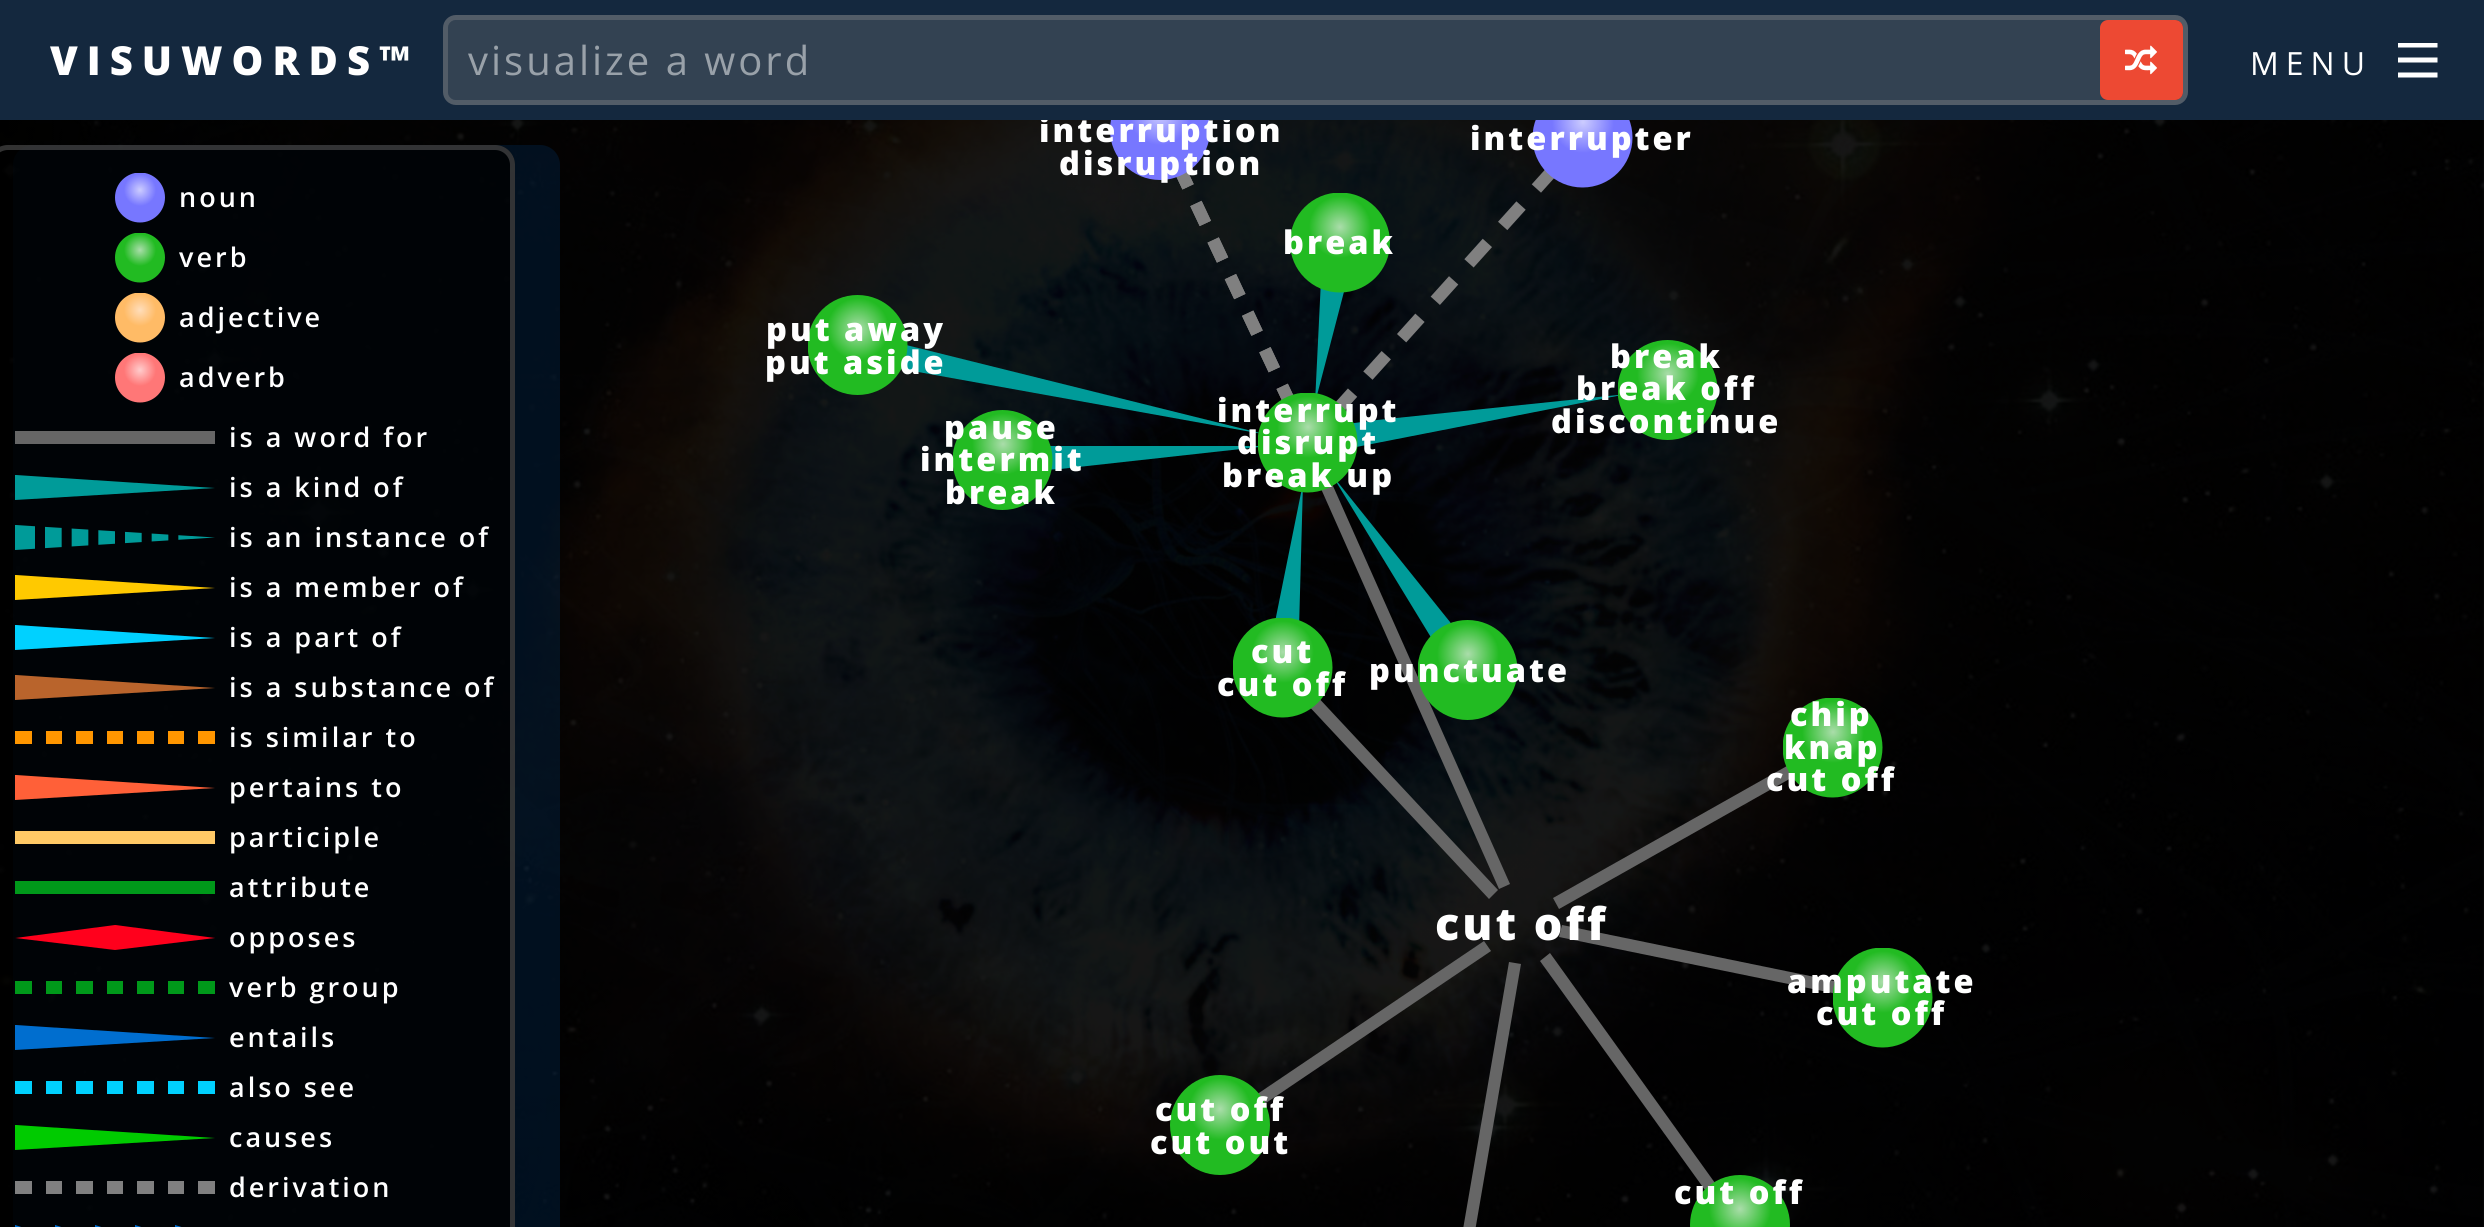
#include <cairo.h>
#include <math.h>
#include <stddef.h>


static void set_color(cairo_t *cr, unsigned color) {
    cairo_set_source_rgb(cr, (color >> 16) / 255.0, (color >> 8 & 255) / 255.0, (color & 255) / 255.0);
}

static void draw_spaced(cairo_t *cr, double x, double y, const char *s, double letter, double word) {
    cairo_move_to(cr, x, y);
    while (*s) {
        char ch[5] = {0};
        int n = 0;
        do ch[n++] = *s++; while ((*s & 0xC0) == 0x80);
        cairo_show_text(cr, ch);
        cairo_rel_move_to(cr, letter + word * (*ch == ' '), 0);
    }
}

static void fill_rect(cairo_t *cr, double x, double y, double w, double h, unsigned color) {
    set_color(cr, color);
    cairo_rectangle(cr, x, y, w, h);
    cairo_fill(cr);
}

static void rounded_rect(cairo_t *cr, double x, double y, double w, double h, double r) {
    cairo_new_sub_path(cr);
    cairo_arc(cr, x + w - r, y + h - r, r, 0, M_PI / 2);
    cairo_arc(cr, x + r, y + h - r, r, M_PI / 2, M_PI);
    cairo_arc(cr, x + r, y + r, r, M_PI, 1.5 * M_PI);
    cairo_arc(cr, x + w - r, y + r, r, 1.5 * M_PI, 2 * M_PI);
    cairo_close_path(cr);
}

static void draw_image(cairo_t *cr, const char *path, double x, double y, double w, double h) {
    cairo_surface_t *image = cairo_image_surface_create_from_png(path);
    cairo_save(cr);
    cairo_set_source_surface(cr, image, x, y);
    cairo_rectangle(cr, x, y, w, h);
    cairo_fill(cr);
    cairo_restore(cr);
    cairo_surface_destroy(image);
}

int main(void) {
    cairo_surface_t *surface = cairo_image_surface_create(CAIRO_FORMAT_RGB24, 2484, 1227);
    cairo_t *cr = cairo_create(surface);
    cairo_font_options_t *options = cairo_font_options_create();
    cairo_font_options_set_hint_metrics(options, CAIRO_HINT_METRICS_OFF);
    cairo_font_options_set_hint_style(options, CAIRO_HINT_STYLE_NONE);
    cairo_set_font_options(cr, options);
    cairo_set_miter_limit(cr, 4);
    cairo_pattern_t *gradient;
    set_color(cr, 0xFFFFFF);
    cairo_paint(cr);
    draw_image(cr, "assets/img1.png", 0, 120, 2484, 1107);
    draw_image(cr, "assets/img4.png", 1176, 171, 118, 230);
    draw_image(cr, "assets/img6.png", 1176, 171, 118, 230);
    gradient = cairo_pattern_create_radial(1160, 114, 0, 1160, 114, 31);
    cairo_pattern_add_color_stop_rgba(gradient, 0, 0.8, 0.8, 1, 1);
    cairo_pattern_add_color_stop_rgba(gradient, 1, 0.467, 0.467, 1, 1);
    cairo_set_source(cr, gradient);
    cairo_pattern_destroy(gradient);
    cairo_arc(cr, 1160, 130, 50, 0, 2 * M_PI);
    cairo_fill(cr);
    cairo_select_font_face(cr, "Open Sans ExtraBold", CAIRO_FONT_SLANT_NORMAL, CAIRO_FONT_WEIGHT_NORMAL);
    cairo_set_font_size(cr, 32.5);
    set_color(cr, 0xFFFFFF);
    draw_spaced(cr, 1039, 142, "interruption", 3, 0);
    set_color(cr, 0x009B99);
    cairo_new_path(cr);
    cairo_move_to(cr, 1627, 394);
    cairo_line_to(cr, 1377, 420);
    cairo_line_to(cr, 1347, 424);
    cairo_line_to(cr, 1351, 448);
    cairo_close_path(cr);
    cairo_fill(cr);
    draw_image(cr, "assets/img5.png", 1335, 169, 220, 242);
    cairo_save(cr);
    cairo_rectangle(cr, 1533, 88, 100, 100);
    cairo_clip(cr);
    gradient = cairo_pattern_create_radial(1583, 122, 0, 1583, 122, 31);
    cairo_pattern_add_color_stop_rgba(gradient, 0, 0.8, 0.8, 1, 1);
    cairo_pattern_add_color_stop_rgba(gradient, 1, 0.467, 0.467, 1, 1);
    cairo_set_source(cr, gradient);
    cairo_pattern_destroy(gradient);
    cairo_arc(cr, 1582.5, 137.5, 50, 0, 2 * M_PI);
    cairo_fill(cr);
    cairo_restore(cr);
    fill_rect(cr, 0, 0, 2484, 120, 0x14283E);
    cairo_set_font_size(cr, 40);
    set_color(cr, 0xFFFFFF);
    draw_spaced(cr, 50, 75, "VISUWORDS™", 9, 0);
    rounded_rect(cr, 445.5, 17.5, 1740, 85, 10.5);
    set_color(cr, 0x525C67);
    cairo_set_line_width(cr, 5);
    cairo_stroke(cr);
    cairo_set_source_rgba(cr, 0.565, 0.565, 0.565, 0.25);
    rounded_rect(cr, 448, 20, 1735, 80, 8);
    cairo_fill(cr);
    cairo_select_font_face(cr, "Open Sans", CAIRO_FONT_SLANT_NORMAL, CAIRO_FONT_WEIGHT_NORMAL);
    set_color(cr, 0x99A1A9);
    draw_spaced(cr, 468, 75, "visualize a word", 3, 0);
    set_color(cr, 0xED4933);
    rounded_rect(cr, 2100, 20, 83, 80, 8);
    cairo_fill(cr);
    draw_image(cr, "assets/img2.png", 2125, 45, 32, 30);
    cairo_set_font_size(cr, 32);
    set_color(cr, 0xFFFFFF);
    draw_spaced(cr, 2250, 75, "MENU", 7, 0);
    cairo_save(cr);
    cairo_rectangle(cr, 2398, 43, 40, 40);
    cairo_clip(cr);
    cairo_new_path(cr);
    cairo_move_to(cr, 2397.5, 45);
    cairo_line_to(cr, 2437.5, 45);
    cairo_move_to(cr, 2397.5, 60);
    cairo_line_to(cr, 2437.5, 60);
    cairo_move_to(cr, 2397.5, 75);
    cairo_line_to(cr, 2437.5, 75);
    cairo_stroke(cr);
    cairo_restore(cr);
    cairo_set_source_rgba(cr, 0, 0.196, 0.392, 0.3);
    rounded_rect(cr, 13, 145, 547, 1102, 20);
    cairo_fill(cr);
    cairo_set_source_rgba(cr, 0, 0, 0, 0.8);
    rounded_rect(cr, -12, 145, 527, 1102, 20);
    cairo_fill(cr);
    rounded_rect(cr, -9.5, 147.5, 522, 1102, 17.5);
    cairo_set_source_rgba(cr, 0.392, 0.392, 0.392, 0.5);
    cairo_stroke(cr);
    cairo_save(cr);
    cairo_rectangle(cr, 115, 173, 50, 50);
    cairo_clip(cr);
    gradient = cairo_pattern_create_radial(140, 190, 0, 140, 190, 16);
    cairo_pattern_add_color_stop_rgba(gradient, 0, 0.8, 0.8, 1, 1);
    cairo_pattern_add_color_stop_rgba(gradient, 1, 0.467, 0.467, 1, 1);
    cairo_set_source(cr, gradient);
    cairo_pattern_destroy(gradient);
    cairo_arc(cr, 140, 197.5, 25, 0, 2 * M_PI);
    cairo_fill(cr);
    cairo_restore(cr);
    cairo_select_font_face(cr, "Open Sans SemiBold", CAIRO_FONT_SLANT_NORMAL, CAIRO_FONT_WEIGHT_NORMAL);
    cairo_set_font_size(cr, 27);
    set_color(cr, 0xFFFFFF);
    draw_spaced(cr, 179, 207, "noun", 3, 0);
    cairo_save(cr);
    cairo_rectangle(cr, 115, 233, 50, 50);
    cairo_clip(cr);
    gradient = cairo_pattern_create_radial(140, 250, 0, 140, 250, 16);
    cairo_pattern_add_color_stop_rgba(gradient, 0, 0.667, 0.867, 0.667, 1);
    cairo_pattern_add_color_stop_rgba(gradient, 1, 0.133, 0.733, 0.133, 1);
    cairo_set_source(cr, gradient);
    cairo_pattern_destroy(gradient);
    cairo_arc(cr, 140, 257.5, 25, 0, 2 * M_PI);
    cairo_fill(cr);
    cairo_restore(cr);
    draw_spaced(cr, 179, 267, "verb", 3, 0);
    cairo_save(cr);
    cairo_rectangle(cr, 115, 293, 50, 50);
    cairo_clip(cr);
    gradient = cairo_pattern_create_radial(140, 310, 0, 140, 310, 16);
    cairo_pattern_add_color_stop_rgba(gradient, 0, 1, 0.867, 0.733, 1);
    cairo_pattern_add_color_stop_rgba(gradient, 1, 1, 0.733, 0.4, 1);
    cairo_set_source(cr, gradient);
    cairo_pattern_destroy(gradient);
    cairo_arc(cr, 140, 317.5, 25, 0, 2 * M_PI);
    cairo_fill(cr);
    cairo_restore(cr);
    draw_spaced(cr, 179, 327, "adjective", 3, 0);
    cairo_save(cr);
    cairo_rectangle(cr, 115, 353, 50, 50);
    cairo_clip(cr);
    gradient = cairo_pattern_create_radial(140, 370, 0, 140, 370, 16);
    cairo_pattern_add_color_stop_rgba(gradient, 0, 1, 0.8, 0.8, 1);
    cairo_pattern_add_color_stop_rgba(gradient, 1, 1, 0.467, 0.467, 1);
    cairo_set_source(cr, gradient);
    cairo_pattern_destroy(gradient);
    cairo_arc(cr, 140, 377.5, 25, 0, 2 * M_PI);
    cairo_fill(cr);
    cairo_restore(cr);
    draw_spaced(cr, 179, 387, "adverb", 3, 0);
    fill_rect(cr, 15, 431, 200, 13, 0x666666);
    set_color(cr, 0xFFFFFF);
    draw_spaced(cr, 229, 447, "is a word for", 3, 0);
    set_color(cr, 0x009B99);
    cairo_new_path(cr);
    cairo_move_to(cr, 15, 475);
    cairo_line_to(cr, 15, 500);
    cairo_line_to(cr, 215, 488);
    cairo_close_path(cr);
    cairo_fill(cr);
    set_color(cr, 0xFFFFFF);
    draw_spaced(cr, 229, 497, "is a kind of", 3, 0);
    draw_image(cr, "assets/img3.png", 15, 525, 200, 25);
    draw_spaced(cr, 229, 547, "is an instance of", 3, 0);
    set_color(cr, 0xFFC900);
    cairo_new_path(cr);
    cairo_move_to(cr, 15, 575);
    cairo_line_to(cr, 15, 600);
    cairo_line_to(cr, 215, 588);
    cairo_close_path(cr);
    cairo_fill(cr);
    set_color(cr, 0xFFFFFF);
    draw_spaced(cr, 229, 597, "is a member of", 3, 0);
    set_color(cr, 0x00D1FF);
    cairo_new_path(cr);
    cairo_move_to(cr, 15, 625);
    cairo_line_to(cr, 15, 650);
    cairo_line_to(cr, 215, 638);
    cairo_close_path(cr);
    cairo_fill(cr);
    set_color(cr, 0xFFFFFF);
    draw_spaced(cr, 229, 647, "is a part of", 3, 0);
    set_color(cr, 0xB9642C);
    cairo_new_path(cr);
    cairo_move_to(cr, 15, 675);
    cairo_line_to(cr, 15, 700);
    cairo_line_to(cr, 215, 688);
    cairo_close_path(cr);
    cairo_fill(cr);
    set_color(cr, 0xFFFFFF);
    draw_spaced(cr, 229, 697, "is a substance of", 3, 0);
    fill_rect(cr, 15, 731, 17, 13, 0xFF9600);
    fill_rect(cr, 46, 731, 16, 13, 0xFF9600);
    fill_rect(cr, 76, 731, 17, 13, 0xFF9600);
    fill_rect(cr, 107, 731, 16, 13, 0xFF9600);
    fill_rect(cr, 137, 731, 17, 13, 0xFF9600);
    fill_rect(cr, 168, 731, 16, 13, 0xFF9600);
    fill_rect(cr, 198, 731, 17, 13, 0xFF9600);
    set_color(cr, 0xFFFFFF);
    draw_spaced(cr, 229, 747, "is similar to", 3, 0);
    set_color(cr, 0xFF6038);
    cairo_new_path(cr);
    cairo_move_to(cr, 15, 775);
    cairo_line_to(cr, 15, 800);
    cairo_line_to(cr, 215, 788);
    cairo_close_path(cr);
    cairo_fill(cr);
    set_color(cr, 0xFFFFFF);
    draw_spaced(cr, 229, 797, "pertains to", 3, 0);
    fill_rect(cr, 15, 831, 200, 13, 0xFFC966);
    set_color(cr, 0xFFFFFF);
    draw_spaced(cr, 229, 847, "participle", 3, 0);
    fill_rect(cr, 15, 881, 200, 13, 0x00991A);
    set_color(cr, 0xFFFFFF);
    draw_spaced(cr, 229, 897, "attribute", 3, 0);
    set_color(cr, 0xFF001C);
    cairo_new_path(cr);
    cairo_move_to(cr, 115, 925);
    cairo_line_to(cr, 15, 938);
    cairo_line_to(cr, 115, 950);
    cairo_line_to(cr, 215, 938);
    cairo_close_path(cr);
    cairo_fill(cr);
    set_color(cr, 0xFFFFFF);
    draw_spaced(cr, 229, 947, "opposes", 3, 0);
    fill_rect(cr, 15, 981, 17, 13, 0x00991A);
    fill_rect(cr, 46, 981, 16, 13, 0x00991A);
    fill_rect(cr, 76, 981, 17, 13, 0x00991A);
    fill_rect(cr, 107, 981, 16, 13, 0x00991A);
    fill_rect(cr, 137, 981, 17, 13, 0x00991A);
    fill_rect(cr, 168, 981, 16, 13, 0x00991A);
    fill_rect(cr, 198, 981, 17, 13, 0x00991A);
    set_color(cr, 0xFFFFFF);
    draw_spaced(cr, 229, 997, "verb group", 3, 0);
    set_color(cr, 0x006ECF);
    cairo_new_path(cr);
    cairo_move_to(cr, 15, 1025);
    cairo_line_to(cr, 15, 1050);
    cairo_line_to(cr, 215, 1038);
    cairo_close_path(cr);
    cairo_fill(cr);
    set_color(cr, 0xFFFFFF);
    draw_spaced(cr, 229, 1047, "entails", 3, 0);
    fill_rect(cr, 15, 1081, 17, 13, 0x00D1FF);
    fill_rect(cr, 46, 1081, 16, 13, 0x00D1FF);
    fill_rect(cr, 76, 1081, 17, 13, 0x00D1FF);
    fill_rect(cr, 107, 1081, 16, 13, 0x00D1FF);
    fill_rect(cr, 137, 1081, 17, 13, 0x00D1FF);
    fill_rect(cr, 168, 1081, 16, 13, 0x00D1FF);
    fill_rect(cr, 198, 1081, 17, 13, 0x00D1FF);
    set_color(cr, 0xFFFFFF);
    draw_spaced(cr, 229, 1097, "also see", 3, 0);
    set_color(cr, 0x00CB00);
    cairo_new_path(cr);
    cairo_move_to(cr, 15, 1125);
    cairo_line_to(cr, 15, 1150);
    cairo_line_to(cr, 215, 1138);
    cairo_close_path(cr);
    cairo_fill(cr);
    set_color(cr, 0xFFFFFF);
    draw_spaced(cr, 229, 1147, "causes", 3, 0);
    fill_rect(cr, 15, 1181, 17, 13, 0x808080);
    fill_rect(cr, 46, 1181, 16, 13, 0x808080);
    fill_rect(cr, 76, 1181, 17, 13, 0x808080);
    fill_rect(cr, 107, 1181, 16, 13, 0x808080);
    fill_rect(cr, 137, 1181, 17, 13, 0x808080);
    fill_rect(cr, 168, 1181, 16, 13, 0x808080);
    fill_rect(cr, 198, 1181, 17, 13, 0x808080);
    set_color(cr, 0xFFFFFF);
    draw_spaced(cr, 229, 1197, "derivation", 3, 0);
    set_color(cr, 0x006ECF);
    cairo_new_path(cr);
    cairo_move_to(cr, 15, 1225);
    cairo_line_to(cr, 15, 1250);
    cairo_line_to(cr, 55, 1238);
    cairo_close_path(cr);
    cairo_move_to(cr, 55, 1225);
    cairo_line_to(cr, 55, 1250);
    cairo_line_to(cr, 95, 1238);
    cairo_close_path(cr);
    cairo_fill(cr);
    cairo_new_path(cr);
    cairo_move_to(cr, 95, 1225);
    cairo_line_to(cr, 95, 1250);
    cairo_line_to(cr, 135, 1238);
    cairo_close_path(cr);
    cairo_move_to(cr, 135, 1225);
    cairo_line_to(cr, 135, 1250);
    cairo_line_to(cr, 175, 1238);
    cairo_close_path(cr);
    cairo_fill(cr);
    cairo_new_path(cr);
    cairo_move_to(cr, 175, 1225);
    cairo_line_to(cr, 175, 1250);
    cairo_line_to(cr, 215, 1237.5);
    cairo_close_path(cr);
    cairo_fill(cr);
    cairo_select_font_face(cr, "Open Sans ExtraBold", CAIRO_FONT_SLANT_NORMAL, CAIRO_FONT_WEIGHT_NORMAL);
    cairo_set_font_size(cr, 32.5);
    set_color(cr, 0xFFFFFF);
    draw_spaced(cr, 1059, 175, "disruption", 3, 0);
    draw_spaced(cr, 1470, 150, "interrupter", 3, 0);
    set_color(cr, 0x009B99);
    cairo_new_path(cr);
    cairo_move_to(cr, 1321, 280);
    cairo_line_to(cr, 1346, 284);
    cairo_line_to(cr, 1315, 403);
    cairo_close_path(cr);
    cairo_fill(cr);
    cairo_save(cr);
    cairo_rectangle(cr, 1290, 193, 100, 100);
    cairo_clip(cr);
    gradient = cairo_pattern_create_radial(1340, 227, 0, 1340, 227, 31);
    cairo_pattern_add_color_stop_rgba(gradient, 0, 0.667, 0.867, 0.667, 1);
    cairo_pattern_add_color_stop_rgba(gradient, 1, 0.133, 0.733, 0.133, 1);
    cairo_set_source(cr, gradient);
    cairo_pattern_destroy(gradient);
    cairo_arc(cr, 1340, 242.5, 50, 0, 2 * M_PI);
    cairo_fill(cr);
    cairo_restore(cr);
    set_color(cr, 0xFFFFFF);
    draw_spaced(cr, 1283, 254, "break", 3, 0);
    set_color(cr, 0x009B99);
    cairo_new_path(cr);
    cairo_move_to(cr, 907, 370);
    cairo_line_to(cr, 1268, 435);
    cairo_line_to(cr, 898, 343);
    cairo_line_to(cr, 893, 367);
    cairo_close_path(cr);
    cairo_fill(cr);
    cairo_save(cr);
    cairo_rectangle(cr, 808, 295, 100, 100);
    cairo_clip(cr);
    gradient = cairo_pattern_create_radial(858, 329, 0, 858, 329, 31);
    cairo_pattern_add_color_stop_rgba(gradient, 0, 0.667, 0.867, 0.667, 1);
    cairo_pattern_add_color_stop_rgba(gradient, 1, 0.133, 0.733, 0.133, 1);
    cairo_set_source(cr, gradient);
    cairo_pattern_destroy(gradient);
    cairo_arc(cr, 857.5, 345, 50, 0, 2 * M_PI);
    cairo_fill(cr);
    cairo_restore(cr);
    set_color(cr, 0xFFFFFF);
    draw_spaced(cr, 766, 341, "put away", 3, 0);
    draw_spaced(cr, 765, 374, "put aside", 3, 0);
    cairo_save(cr);
    cairo_rectangle(cr, 1618, 340, 100, 100);
    cairo_clip(cr);
    gradient = cairo_pattern_create_radial(1668, 374, 0, 1668, 374, 31);
    cairo_pattern_add_color_stop_rgba(gradient, 0, 0.667, 0.867, 0.667, 1);
    cairo_pattern_add_color_stop_rgba(gradient, 1, 0.133, 0.733, 0.133, 1);
    cairo_set_source(cr, gradient);
    cairo_pattern_destroy(gradient);
    cairo_arc(cr, 1667.5, 390, 50, 0, 2 * M_PI);
    cairo_fill(cr);
    cairo_restore(cr);
    draw_spaced(cr, 1610, 368, "break", 3, 0);
    draw_spaced(cr, 1576, 400, "break off", 3, 0);
    draw_spaced(cr, 1551, 433, "discontinue", 3, 0);
    set_color(cr, 0x009B99);
    cairo_new_path(cr);
    cairo_move_to(cr, 1042, 446);
    cairo_line_to(cr, 1043, 470);
    cairo_line_to(cr, 1060, 469);
    cairo_line_to(cr, 1268, 446);
    cairo_close_path(cr);
    cairo_fill(cr);
    cairo_save(cr);
    cairo_rectangle(cr, 953, 410, 100, 100);
    cairo_clip(cr);
    gradient = cairo_pattern_create_radial(1003, 444, 0, 1003, 444, 31);
    cairo_pattern_add_color_stop_rgba(gradient, 0, 0.667, 0.867, 0.667, 1);
    cairo_pattern_add_color_stop_rgba(gradient, 1, 0.133, 0.733, 0.133, 1);
    cairo_set_source(cr, gradient);
    cairo_pattern_destroy(gradient);
    cairo_arc(cr, 1002.5, 460, 50, 0, 2 * M_PI);
    cairo_fill(cr);
    cairo_restore(cr);
    set_color(cr, 0xFFFFFF);
    draw_spaced(cr, 944, 439, "pause", 3, 0);
    draw_spaced(cr, 920, 471, "intermit", 3, 0);
    draw_spaced(cr, 945, 504, "break", 3, 0);
    set_color(cr, 0x666666);
    cairo_new_path(cr);
    cairo_move_to(cr, 1489, 899);
    cairo_line_to(cr, 1498, 890);
    cairo_line_to(cr, 1314, 693);
    cairo_line_to(cr, 1305, 702);
    cairo_close_path(cr);
    cairo_fill(cr);
    cairo_new_path(cr);
    cairo_move_to(cr, 1499, 889);
    cairo_line_to(cr, 1510, 884);
    cairo_line_to(cr, 1329, 477);
    cairo_line_to(cr, 1318, 482);
    cairo_close_path(cr);
    cairo_fill(cr);
    set_color(cr, 0x009B99);
    cairo_new_path(cr);
    cairo_move_to(cr, 1435, 644);
    cairo_line_to(cr, 1455, 630);
    cairo_line_to(cr, 1450, 622);
    cairo_line_to(cr, 1332, 475);
    cairo_close_path(cr);
    cairo_fill(cr);
    cairo_new_path(cr);
    cairo_move_to(cr, 1275, 627);
    cairo_line_to(cr, 1299, 629);
    cairo_line_to(cr, 1303, 483);
    cairo_line_to(cr, 1276, 617);
    cairo_close_path(cr);
    cairo_fill(cr);
    cairo_save(cr);
    cairo_rectangle(cr, 1258, 393, 100, 100);
    cairo_clip(cr);
    gradient = cairo_pattern_create_radial(1308, 427, 0, 1308, 427, 31);
    cairo_pattern_add_color_stop_rgba(gradient, 0, 0.667, 0.867, 0.667, 1);
    cairo_pattern_add_color_stop_rgba(gradient, 1, 0.133, 0.733, 0.133, 1);
    cairo_set_source(cr, gradient);
    cairo_pattern_destroy(gradient);
    cairo_arc(cr, 1307.5, 442.5, 50, 0, 2 * M_PI);
    cairo_fill(cr);
    cairo_restore(cr);
    set_color(cr, 0xFFFFFF);
    draw_spaced(cr, 1217, 422, "interrupt", 3, 0);
    draw_spaced(cr, 1237, 454, "disrupt", 3, 0);
    draw_spaced(cr, 1222, 487, "break up", 3, 0);
    cairo_save(cr);
    cairo_rectangle(cr, 1233, 618, 100, 100);
    cairo_clip(cr);
    gradient = cairo_pattern_create_radial(1283, 652, 0, 1283, 652, 31);
    cairo_pattern_add_color_stop_rgba(gradient, 0, 0.667, 0.867, 0.667, 1);
    cairo_pattern_add_color_stop_rgba(gradient, 1, 0.133, 0.733, 0.133, 1);
    cairo_set_source(cr, gradient);
    cairo_pattern_destroy(gradient);
    cairo_arc(cr, 1282.5, 667.5, 50, 0, 2 * M_PI);
    cairo_fill(cr);
    cairo_restore(cr);
    draw_spaced(cr, 1251, 663, "cut", 3, 0);
    draw_spaced(cr, 1217, 696, "cut off", 3, 0);
    cairo_save(cr);
    cairo_rectangle(cr, 1418, 620, 100, 100);
    cairo_clip(cr);
    gradient = cairo_pattern_create_radial(1468, 654, 0, 1468, 654, 31);
    cairo_pattern_add_color_stop_rgba(gradient, 0, 0.667, 0.867, 0.667, 1);
    cairo_pattern_add_color_stop_rgba(gradient, 1, 0.133, 0.733, 0.133, 1);
    cairo_set_source(cr, gradient);
    cairo_pattern_destroy(gradient);
    cairo_arc(cr, 1467.5, 670, 50, 0, 2 * M_PI);
    cairo_fill(cr);
    cairo_restore(cr);
    draw_spaced(cr, 1369, 682, "punctuate", 3, 0);
    set_color(cr, 0x666666);
    cairo_new_path(cr);
    cairo_move_to(cr, 1559, 909);
    cairo_line_to(cr, 1800, 773);
    cairo_line_to(cr, 1794, 762);
    cairo_line_to(cr, 1553, 898);
    cairo_close_path(cr);
    cairo_fill(cr);
    cairo_save(cr);
    cairo_rectangle(cr, 1783, 698, 100, 100);
    cairo_clip(cr);
    gradient = cairo_pattern_create_radial(1833, 732, 0, 1833, 732, 31);
    cairo_pattern_add_color_stop_rgba(gradient, 0, 0.667, 0.867, 0.667, 1);
    cairo_pattern_add_color_stop_rgba(gradient, 1, 0.133, 0.733, 0.133, 1);
    cairo_set_source(cr, gradient);
    cairo_pattern_destroy(gradient);
    cairo_arc(cr, 1832.5, 747.5, 50, 0, 2 * M_PI);
    cairo_fill(cr);
    cairo_restore(cr);
    set_color(cr, 0xFFFFFF);
    draw_spaced(cr, 1790, 726, "chip", 3, 0);
    draw_spaced(cr, 1784, 759, "knap", 3, 0);
    draw_spaced(cr, 1766, 791, "cut off", 3, 0);
    set_color(cr, 0x666666);
    cairo_new_path(cr);
    cairo_move_to(cr, 1491, 951);
    cairo_line_to(cr, 1484, 941);
    cairo_line_to(cr, 1250, 1099);
    cairo_line_to(cr, 1257, 1109);
    cairo_close_path(cr);
    cairo_fill(cr);
    cairo_new_path(cr);
    cairo_move_to(cr, 1550, 953);
    cairo_line_to(cr, 1540, 961);
    cairo_line_to(cr, 1710, 1197);
    cairo_line_to(cr, 1720, 1190);
    cairo_close_path(cr);
    cairo_fill(cr);
    cairo_new_path(cr);
    cairo_move_to(cr, 1562, 925);
    cairo_line_to(cr, 1559, 937);
    cairo_line_to(cr, 1842, 995);
    cairo_line_to(cr, 1844, 983);
    cairo_close_path(cr);
    cairo_fill(cr);
    cairo_set_font_size(cr, 45);
    set_color(cr, 0xFFFFFF);
    draw_spaced(cr, 1435, 940, "cut off", 3, 0);
    set_color(cr, 0x666666);
    cairo_new_path(cr);
    cairo_move_to(cr, 1521, 964);
    cairo_line_to(cr, 1473, 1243);
    cairo_line_to(cr, 1461, 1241);
    cairo_line_to(cr, 1509, 962);
    cairo_close_path(cr);
    cairo_fill(cr);
    cairo_save(cr);
    cairo_rectangle(cr, 1833, 948, 100, 100);
    cairo_clip(cr);
    gradient = cairo_pattern_create_radial(1883, 982, 0, 1883, 982, 31);
    cairo_pattern_add_color_stop_rgba(gradient, 0, 0.667, 0.867, 0.667, 1);
    cairo_pattern_add_color_stop_rgba(gradient, 1, 0.133, 0.733, 0.133, 1);
    cairo_set_source(cr, gradient);
    cairo_pattern_destroy(gradient);
    cairo_arc(cr, 1882.5, 997.5, 50, 0, 2 * M_PI);
    cairo_fill(cr);
    cairo_restore(cr);
    cairo_set_font_size(cr, 32.5);
    set_color(cr, 0xFFFFFF);
    draw_spaced(cr, 1787, 993, "amputate", 3, 0);
    draw_spaced(cr, 1816, 1025, "cut off", 3, 0);
    gradient = cairo_pattern_create_radial(1220, 1109, 0, 1220, 1109, 31);
    cairo_pattern_add_color_stop_rgba(gradient, 0, 0.667, 0.867, 0.667, 1);
    cairo_pattern_add_color_stop_rgba(gradient, 1, 0.133, 0.733, 0.133, 1);
    cairo_set_source(cr, gradient);
    cairo_pattern_destroy(gradient);
    cairo_new_path(cr);
    cairo_arc(cr, 1220, 1125, 50, 0, 2 * M_PI);
    cairo_fill(cr);
    set_color(cr, 0xFFFFFF);
    draw_spaced(cr, 1155, 1121, "cut off", 3, 0);
    draw_spaced(cr, 1150, 1154, "cut out", 3, 0);
    gradient = cairo_pattern_create_radial(1740, 1209, 0, 1740, 1209, 31);
    cairo_pattern_add_color_stop_rgba(gradient, 0, 0.667, 0.867, 0.667, 1);
    cairo_pattern_add_color_stop_rgba(gradient, 1, 0.133, 0.733, 0.133, 1);
    cairo_set_source(cr, gradient);
    cairo_pattern_destroy(gradient);
    cairo_new_path(cr);
    cairo_arc(cr, 1740, 1225, 50, 0, 2 * M_PI);
    cairo_fill(cr);
    set_color(cr, 0xFFFFFF);
    draw_spaced(cr, 1674, 1204, "cut off", 3, 0);
    cairo_surface_write_to_png(surface, "output.png");
    cairo_font_options_destroy(options);
    cairo_destroy(cr);
    cairo_surface_destroy(surface);
    return 0;
}
